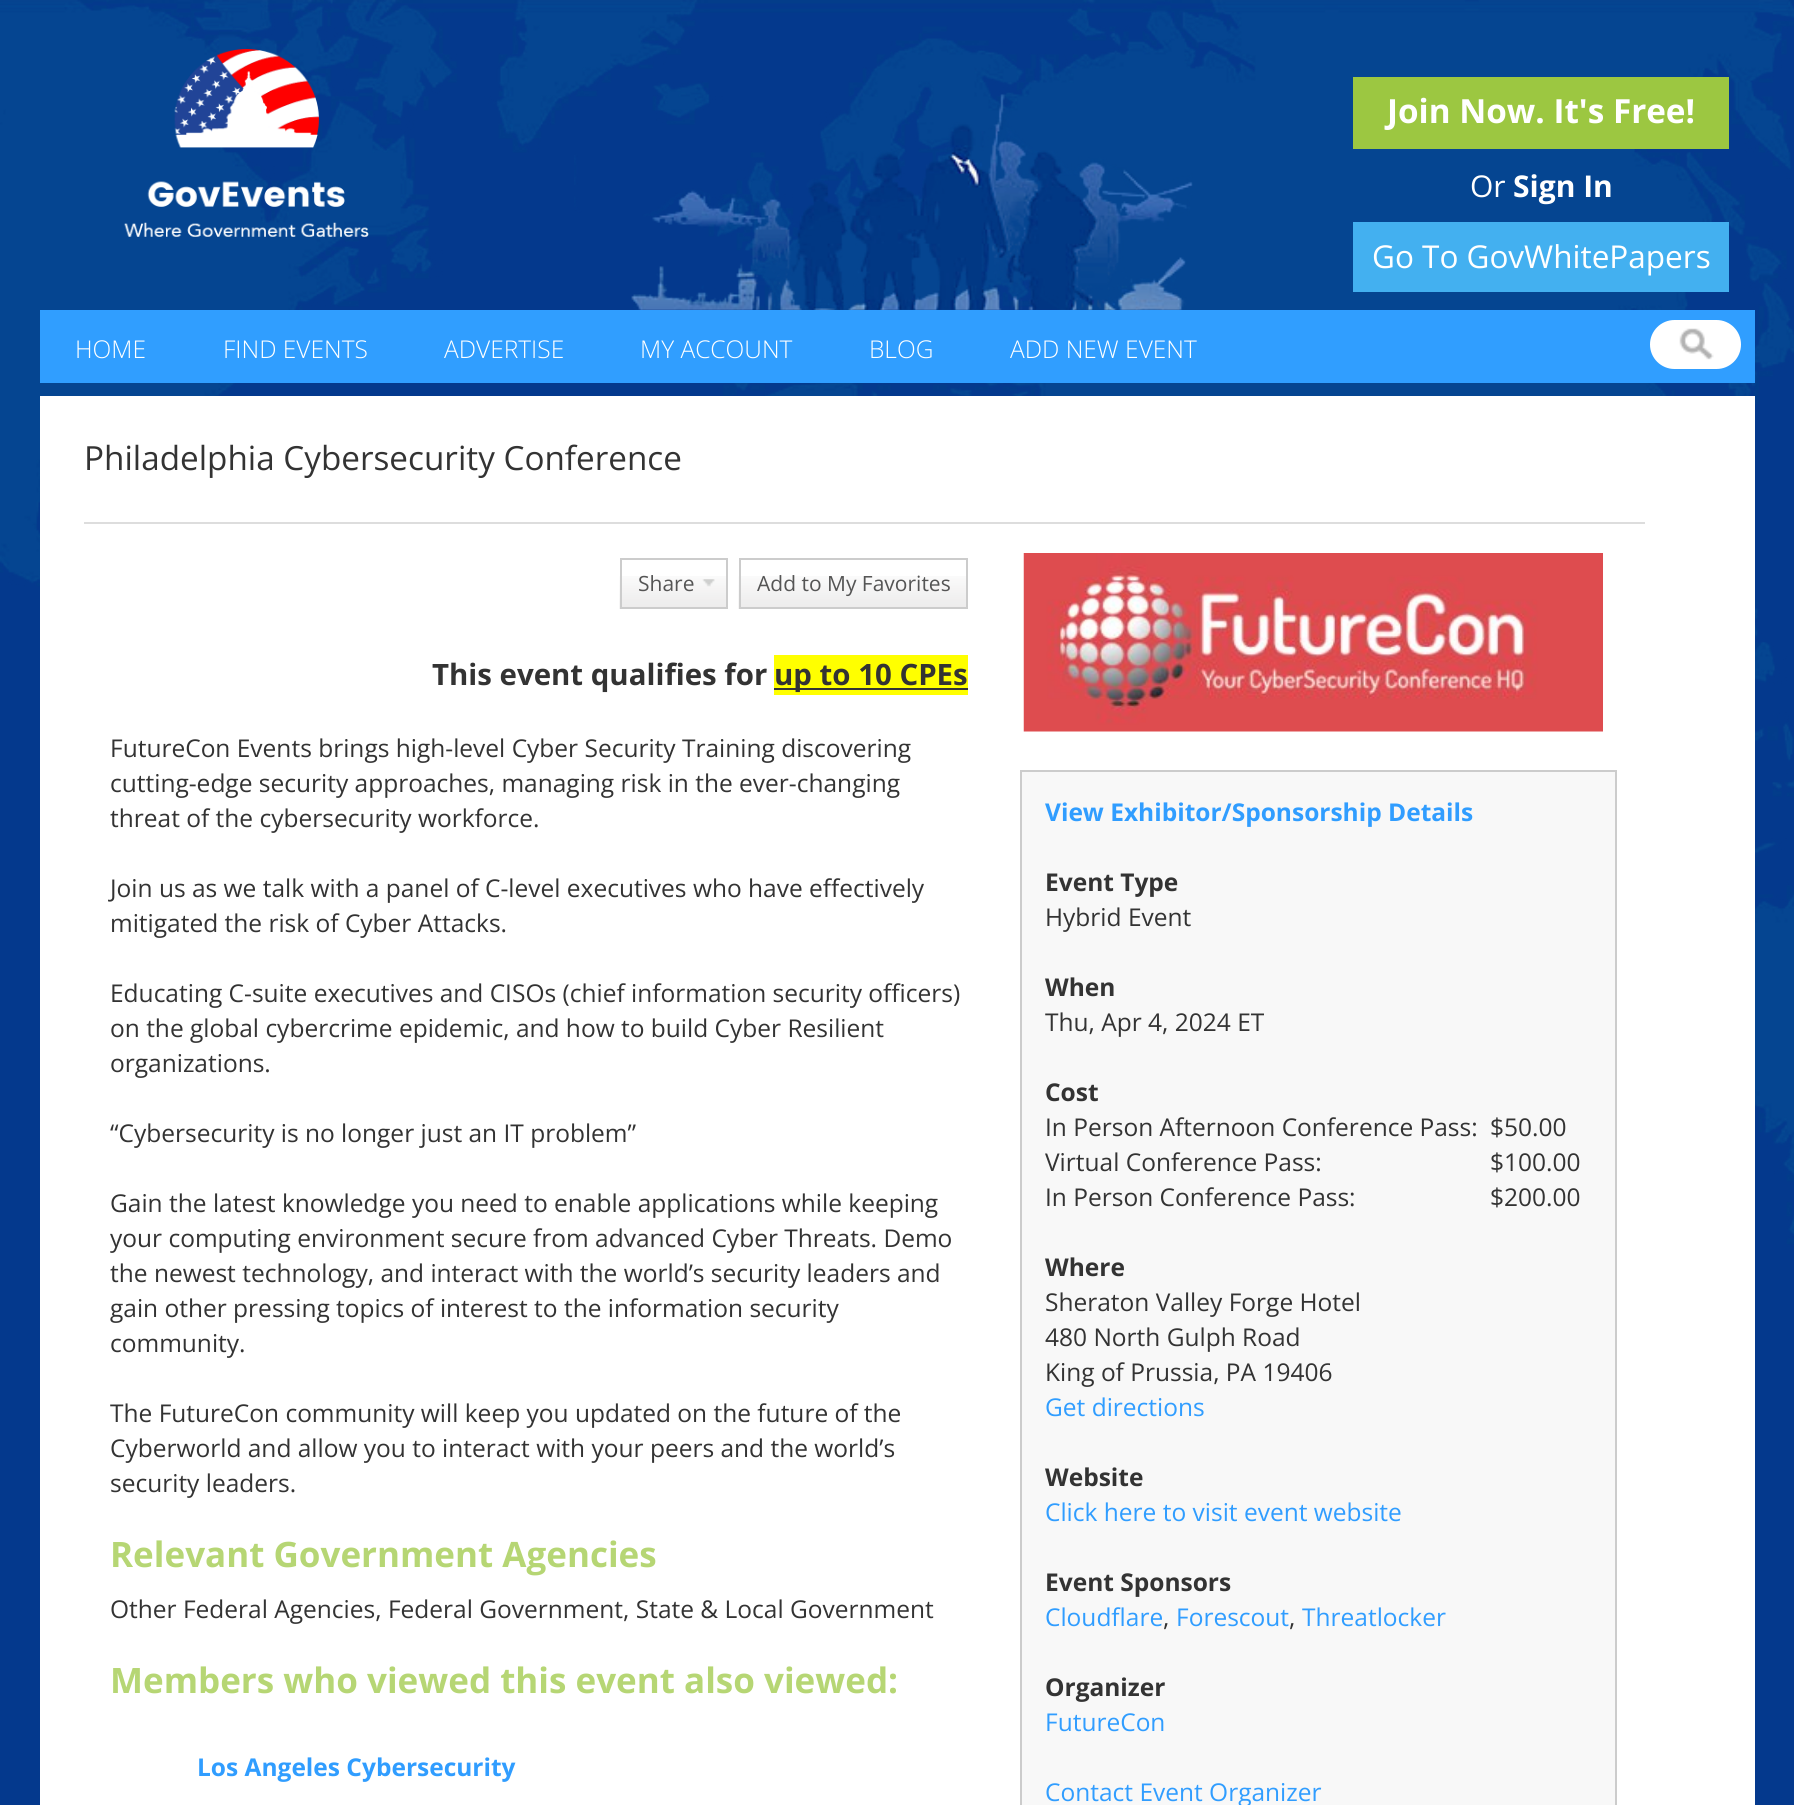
#include <cairo.h>
#include <math.h>
#include <stddef.h>


static void set_color(cairo_t *cr, unsigned color) {
    cairo_set_source_rgb(cr, (color >> 16) / 255.0, (color >> 8 & 255) / 255.0, (color & 255) / 255.0);
}

static void draw_text(cairo_t *cr, double x, double y, const char *s, const char *family, double size, int italic, int bold, unsigned color) {
    cairo_select_font_face(cr, family, italic ? CAIRO_FONT_SLANT_ITALIC : CAIRO_FONT_SLANT_NORMAL,
        bold ? CAIRO_FONT_WEIGHT_BOLD : CAIRO_FONT_WEIGHT_NORMAL);
    cairo_set_font_size(cr, size);
    set_color(cr, color);
    cairo_move_to(cr, x, y);
    cairo_show_text(cr, s);
}

static void fill_rect(cairo_t *cr, double x, double y, double w, double h, unsigned color) {
    set_color(cr, color);
    cairo_rectangle(cr, x, y, w, h);
    cairo_fill(cr);
}

static void rounded_rect(cairo_t *cr, double x, double y, double w, double h, double r) {
    cairo_new_sub_path(cr);
    cairo_arc(cr, x + w - r, y + h - r, r, 0, M_PI / 2);
    cairo_arc(cr, x + r, y + h - r, r, M_PI / 2, M_PI);
    cairo_arc(cr, x + r, y + r, r, M_PI, 1.5 * M_PI);
    cairo_arc(cr, x + w - r, y + r, r, 1.5 * M_PI, 2 * M_PI);
    cairo_close_path(cr);
}

static void draw_image(cairo_t *cr, const char *path, double x, double y, double w, double h) {
    cairo_surface_t *image = cairo_image_surface_create_from_png(path);
    cairo_save(cr);
    cairo_set_source_surface(cr, image, x, y);
    cairo_rectangle(cr, x, y, w, h);
    cairo_fill(cr);
    cairo_restore(cr);
    cairo_surface_destroy(image);
}

int main(void) {
    cairo_surface_t *surface = cairo_image_surface_create(CAIRO_FORMAT_RGB24, 1794, 1805);
    cairo_t *cr = cairo_create(surface);
    cairo_font_options_t *options = cairo_font_options_create();
    cairo_font_options_set_hint_metrics(options, CAIRO_HINT_METRICS_OFF);
    cairo_font_options_set_hint_style(options, CAIRO_HINT_STYLE_NONE);
    cairo_set_font_options(cr, options);
    cairo_set_miter_limit(cr, 4);
    set_color(cr, 0x04398D);
    cairo_paint(cr);
    draw_image(cr, "assets/img1.png", 0, 0, 1794, 1245);
    draw_image(cr, "assets/img2.png", 574, 94, 619, 216);
    draw_image(cr, "assets/img3.png", 124, 49, 245, 188);
    fill_rect(cr, 1353, 77, 376, 72, 0x9CC741);
    draw_text(cr, 1387, 123, "Join Now. It's Free!", "Open Sans", 33.25, 0, 1, 0xFFFFFF);
    draw_text(cr, 1470, 197, "Or", "Open Sans", 30, 0, 0, 0xFFFFFF);
    draw_text(cr, 1513, 197, "Sign In", "Open Sans", 30, 0, 1, 0xFFFFFF);
    fill_rect(cr, 1353, 222, 376, 70, 0x43B0F0);
    draw_text(cr, 1372, 268, "Go To GovWhitePapers", "Open Sans", 31.5, 0, 0, 0xFFFFFF);
    fill_rect(cr, 40, 310, 1715, 73, 0x309EFF);
    draw_text(cr, 75, 358, "HOME", "Open Sans Light", 24.5, 0, 0, 0xFFFFFF);
    draw_text(cr, 223, 358, "FIND EVENTS", "Open Sans Light", 24.5, 0, 0, 0xFFFFFF);
    draw_text(cr, 444, 358, "ADVERTISE", "Open Sans Light", 24.5, 0, 0, 0xFFFFFF);
    draw_text(cr, 640, 358, "MY ACCOUNT", "Open Sans Light", 24.5, 0, 0, 0xFFFFFF);
    draw_text(cr, 869, 358, "BLOG", "Open Sans Light", 24.5, 0, 0, 0xFFFFFF);
    draw_text(cr, 1010, 358, "ADD NEW EVENT", "Open Sans Light", 24.5, 0, 0, 0xFFFFFF);
    rounded_rect(cr, 1650, 320, 91, 49, 24.5);
    cairo_fill(cr);
    draw_image(cr, "assets/img4.png", 1679, 328, 35, 32);
    fill_rect(cr, 40, 396, 1715, 1409, 0xFFFFFF);
    fill_rect(cr, 84, 522, 1561, 2, 0xDDDDDD);
    draw_text(cr, 84, 470, "Philadelphia Cybersecurity Conference", "Open Sans", 33.25, 0, 0, 0x333333);
    draw_image(cr, "assets/img5.png", 619, 576, 107, 33);
    cairo_rectangle(cr, 621, 559, 106, 49);
    set_color(cr, 0xCCCCCC);
    cairo_stroke(cr);
    draw_text(cr, 638, 591, "Share", "Open Sans", 21, 0, 0, 0x555555);
    draw_image(cr, "assets/img6.png", 702, 579, 13, 8);
    draw_image(cr, "assets/img7.png", 738, 576, 228, 33);
    cairo_rectangle(cr, 740, 559, 227, 49);
    set_color(cr, 0xCCCCCC);
    cairo_stroke(cr);
    draw_text(cr, 757, 591, "Add to My Favorites", "Open Sans", 21, 0, 0, 0x555555);
    draw_text(cr, 432, 685, "This event qualifies for", "Open Sans", 29.4, 0, 1, 0x333333);
    fill_rect(cr, 774, 655, 194, 40, 0xFFFF00);
    fill_rect(cr, 774, 688, 194, 2, 0x333333);
    draw_text(cr, 774, 685, "up to 10 CPEs", "Open Sans", 29.4, 0, 1, 0x333333);
    draw_text(cr, 110, 757, "FutureCon Events brings high-level Cyber Security Training discovering", "Open Sans", 24.5, 0, 0, 0x333333);
    draw_text(cr, 110, 792, "cutting-edge security approaches, managing risk in the ever-changing", "Open Sans", 24.5, 0, 0, 0x333333);
    draw_text(cr, 110, 827, "threat of the cybersecurity workforce.", "Open Sans", 24.5, 0, 0, 0x333333);
    draw_text(cr, 110, 897, "Join us as we talk with a panel of C-level executives who have effectively", "Open Sans", 24.5, 0, 0, 0x333333);
    draw_text(cr, 110, 932, "mitigated the risk of Cyber Attacks.", "Open Sans", 24.5, 0, 0, 0x333333);
    draw_text(cr, 110, 1002, "Educating C-suite executives and CISOs (chief information security officers)", "Open Sans", 24.5, 0, 0, 0x333333);
    draw_text(cr, 110, 1037, "on the global cybercrime epidemic, and how to build Cyber Resilient", "Open Sans", 24.5, 0, 0, 0x333333);
    draw_text(cr, 110, 1072, "organizations.", "Open Sans", 24.5, 0, 0, 0x333333);
    draw_text(cr, 110, 1142, "“Cybersecurity is no longer just an IT problem”", "Open Sans", 24.5, 0, 0, 0x333333);
    draw_text(cr, 110, 1212, "Gain the latest knowledge you need to enable applications while keeping", "Open Sans", 24.5, 0, 0, 0x333333);
    draw_text(cr, 110, 1247, "your computing environment secure from advanced Cyber Threats. Demo", "Open Sans", 24.5, 0, 0, 0x333333);
    draw_text(cr, 110, 1282, "the newest technology, and interact with the world’s security leaders and", "Open Sans", 24.5, 0, 0, 0x333333);
    draw_text(cr, 110, 1317, "gain other pressing topics of interest to the information security", "Open Sans", 24.5, 0, 0, 0x333333);
    draw_text(cr, 110, 1352, "community.", "Open Sans", 24.5, 0, 0, 0x333333);
    draw_text(cr, 110, 1422, "The FutureCon community will keep you updated on the future of the", "Open Sans", 24.5, 0, 0, 0x333333);
    draw_text(cr, 110, 1457, "Cyberworld and allow you to interact with your peers and the world’s", "Open Sans", 24.5, 0, 0, 0x333333);
    draw_text(cr, 110, 1492, "security leaders.", "Open Sans", 24.5, 0, 0, 0x333333);
    draw_text(cr, 110, 1567, "Relevant Government Agencies", "Open Sans", 35, 0, 1, 0xB6D674);
    draw_text(cr, 110, 1618, "Other Federal Agencies, Federal Government, State & Local Government", "Open Sans", 24.5, 0, 0, 0x333333);
    draw_text(cr, 110, 1693, "Members who viewed this event also viewed:", "Open Sans", 35, 0, 1, 0xB6D674);
    draw_text(cr, 197, 1776, "Los Angeles Cybersecurity", "Open Sans", 24.5, 0, 1, 0x309DFF);
    draw_image(cr, "assets/img8.png", 1023, 553, 580, 179);
    set_color(cr, 0xF8F8F8);
    cairo_rectangle(cr, 1021, 771, 595, 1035);
    cairo_fill_preserve(cr);
    set_color(cr, 0xCCCCCC);
    cairo_stroke(cr);
    draw_text(cr, 1045, 821, "View Exhibitor/Sponsorship Details", "Open Sans", 24.5, 0, 1, 0x309DFF);
    draw_text(cr, 1045, 891, "Event Type", "Open Sans", 24.5, 0, 1, 0x333333);
    draw_text(cr, 1045, 926, "Hybrid Event", "Open Sans", 24.5, 0, 0, 0x333333);
    draw_text(cr, 1045, 996, "When", "Open Sans", 24.5, 0, 1, 0x333333);
    draw_text(cr, 1045, 1031, "Thu, Apr 4, 2024 ET", "Open Sans", 24.5, 0, 0, 0x333333);
    draw_text(cr, 1045, 1101, "Cost", "Open Sans", 24.5, 0, 1, 0x333333);
    draw_text(cr, 1045, 1136, "In Person Afternoon Conference Pass:", "Open Sans", 24.5, 0, 0, 0x333333);
    draw_text(cr, 1490, 1136, "$50.00", "Open Sans", 24.5, 0, 0, 0x333333);
    draw_text(cr, 1045, 1171, "Virtual Conference Pass:", "Open Sans", 24.5, 0, 0, 0x333333);
    draw_text(cr, 1490, 1171, "$100.00", "Open Sans", 24.5, 0, 0, 0x333333);
    draw_text(cr, 1045, 1206, "In Person Conference Pass:", "Open Sans", 24.5, 0, 0, 0x333333);
    draw_text(cr, 1490, 1206, "$200.00", "Open Sans", 24.5, 0, 0, 0x333333);
    draw_text(cr, 1045, 1276, "Where", "Open Sans", 24.5, 0, 1, 0x333333);
    draw_text(cr, 1045, 1311, "Sheraton Valley Forge Hotel", "Open Sans", 24.5, 0, 0, 0x333333);
    draw_text(cr, 1045, 1346, "480 North Gulph Road", "Open Sans", 24.5, 0, 0, 0x333333);
    draw_text(cr, 1045, 1381, "King of Prussia, PA 19406", "Open Sans", 24.5, 0, 0, 0x333333);
    draw_text(cr, 1045, 1416, "Get directions", "Open Sans", 24.5, 0, 0, 0x309DFF);
    draw_text(cr, 1045, 1486, "Website", "Open Sans", 24.5, 0, 1, 0x333333);
    draw_text(cr, 1045, 1521, "Click here to visit event website", "Open Sans", 24.5, 0, 0, 0x309DFF);
    draw_text(cr, 1045, 1591, "Event Sponsors", "Open Sans", 24.5, 0, 1, 0x333333);
    draw_text(cr, 1045, 1626, "Cloudflare", "Open Sans", 24.5, 0, 0, 0x309DFF);
    draw_text(cr, 1163, 1626, ",", "Open Sans", 24.5, 0, 0, 0x333333);
    draw_text(cr, 1176, 1626, "Forescout", "Open Sans", 24.5, 0, 0, 0x309DFF);
    draw_text(cr, 1289, 1626, ",", "Open Sans", 24.5, 0, 0, 0x333333);
    draw_text(cr, 1302, 1626, "Threatlocker", "Open Sans", 24.5, 0, 0, 0x309DFF);
    draw_text(cr, 1045, 1696, "Organizer", "Open Sans", 24.5, 0, 1, 0x333333);
    draw_text(cr, 1045, 1731, "FutureCon", "Open Sans", 24.5, 0, 0, 0x309DFF);
    draw_text(cr, 1045, 1801, "Contact Event Organizer", "Open Sans", 24.5, 0, 0, 0x309DFF);
    cairo_surface_write_to_png(surface, "output.png");
    cairo_font_options_destroy(options);
    cairo_destroy(cr);
    cairo_surface_destroy(surface);
    return 0;
}
